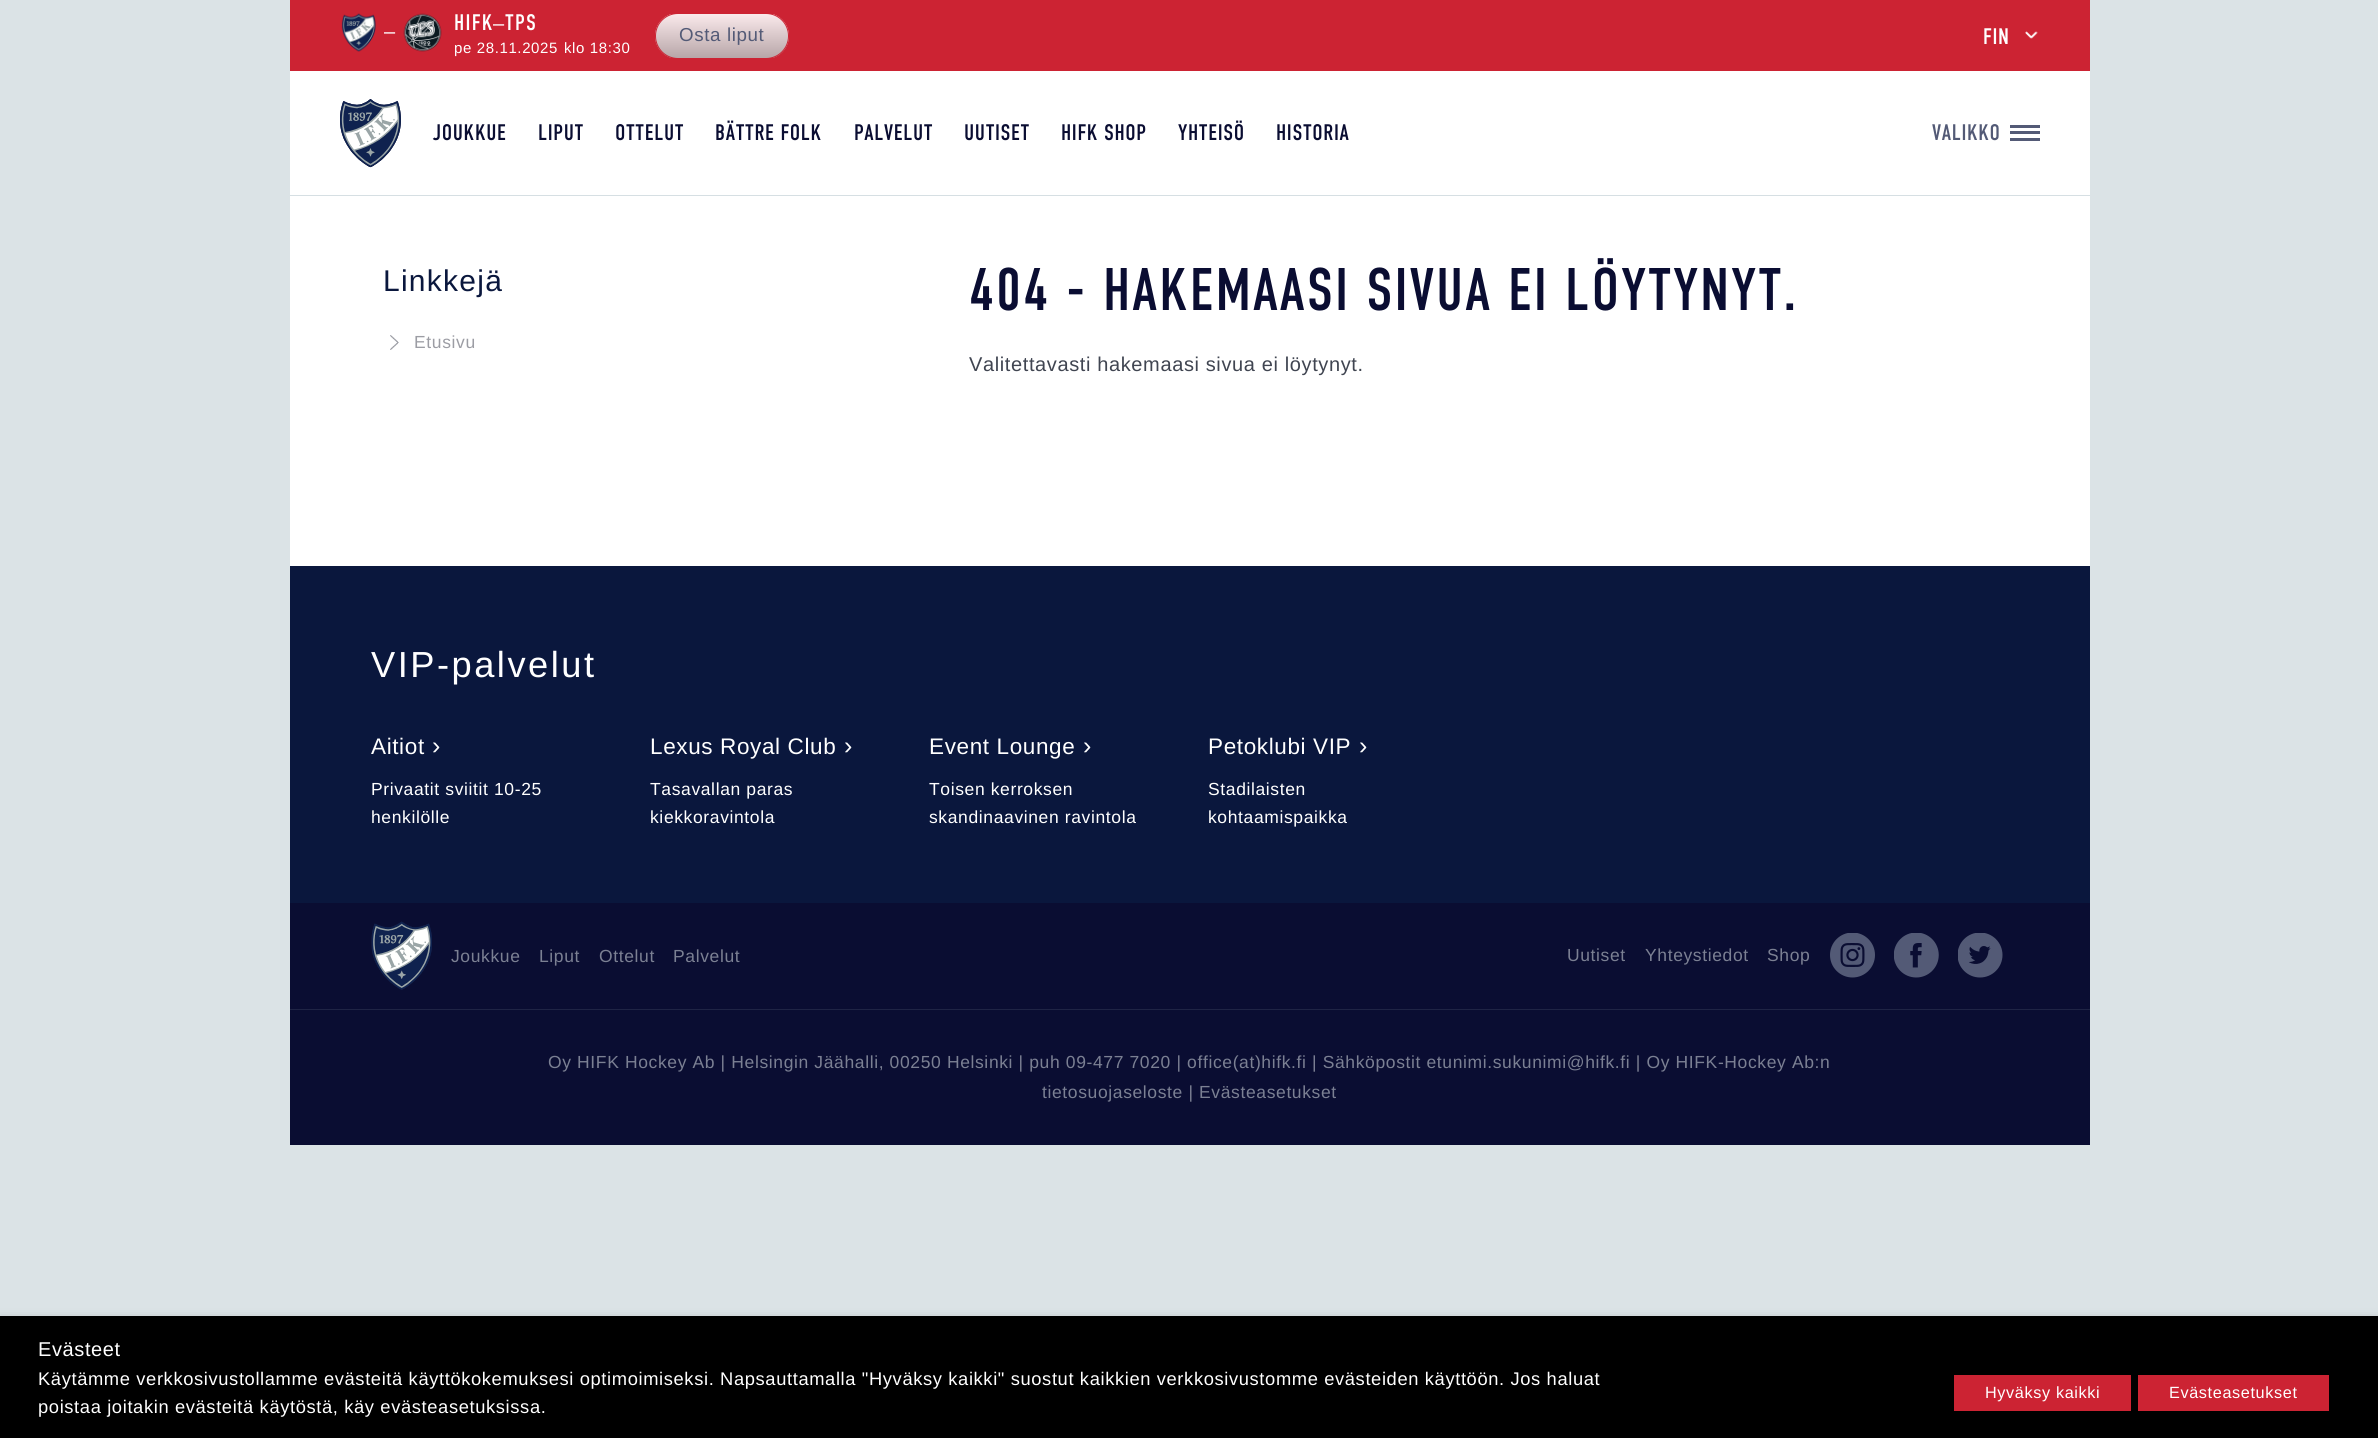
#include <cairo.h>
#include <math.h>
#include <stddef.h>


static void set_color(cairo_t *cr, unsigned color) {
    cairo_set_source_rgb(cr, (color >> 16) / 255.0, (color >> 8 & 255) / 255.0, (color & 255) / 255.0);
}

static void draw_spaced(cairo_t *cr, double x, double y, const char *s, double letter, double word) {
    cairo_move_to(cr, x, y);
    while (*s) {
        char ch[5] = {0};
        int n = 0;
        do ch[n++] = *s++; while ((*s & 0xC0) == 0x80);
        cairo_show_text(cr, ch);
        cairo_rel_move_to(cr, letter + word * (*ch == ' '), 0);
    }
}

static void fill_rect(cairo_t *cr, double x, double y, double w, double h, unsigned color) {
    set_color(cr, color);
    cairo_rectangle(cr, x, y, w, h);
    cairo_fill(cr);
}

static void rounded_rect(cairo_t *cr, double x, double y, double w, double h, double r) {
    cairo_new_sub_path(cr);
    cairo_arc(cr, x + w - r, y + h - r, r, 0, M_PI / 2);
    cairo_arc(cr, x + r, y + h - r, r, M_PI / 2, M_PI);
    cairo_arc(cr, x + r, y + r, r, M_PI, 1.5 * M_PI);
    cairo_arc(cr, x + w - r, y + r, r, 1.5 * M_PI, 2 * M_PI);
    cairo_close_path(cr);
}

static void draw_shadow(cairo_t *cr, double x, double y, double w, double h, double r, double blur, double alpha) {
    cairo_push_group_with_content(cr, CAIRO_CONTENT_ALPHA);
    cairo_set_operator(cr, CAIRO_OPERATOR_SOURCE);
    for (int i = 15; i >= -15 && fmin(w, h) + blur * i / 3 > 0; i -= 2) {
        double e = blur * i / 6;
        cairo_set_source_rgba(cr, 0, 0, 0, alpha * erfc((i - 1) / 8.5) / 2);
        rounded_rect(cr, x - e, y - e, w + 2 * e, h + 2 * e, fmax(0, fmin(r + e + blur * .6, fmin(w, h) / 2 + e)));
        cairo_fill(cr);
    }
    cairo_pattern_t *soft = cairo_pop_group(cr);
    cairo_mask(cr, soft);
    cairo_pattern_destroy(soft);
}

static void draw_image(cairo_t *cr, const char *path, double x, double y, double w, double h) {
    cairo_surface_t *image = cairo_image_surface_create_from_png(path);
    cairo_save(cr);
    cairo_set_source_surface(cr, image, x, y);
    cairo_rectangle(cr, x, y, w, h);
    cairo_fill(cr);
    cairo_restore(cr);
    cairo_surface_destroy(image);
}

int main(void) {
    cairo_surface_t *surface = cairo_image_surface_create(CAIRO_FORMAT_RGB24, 2378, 1438);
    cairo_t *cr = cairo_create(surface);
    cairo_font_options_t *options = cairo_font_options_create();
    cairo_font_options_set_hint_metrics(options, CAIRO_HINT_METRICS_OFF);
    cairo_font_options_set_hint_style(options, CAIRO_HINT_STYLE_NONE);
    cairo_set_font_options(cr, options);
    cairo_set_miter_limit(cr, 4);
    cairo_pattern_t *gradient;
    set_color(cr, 0xDBE3E6);
    cairo_paint(cr);
    fill_rect(cr, 290, 71, 1800, 495, 0xFFFFFF);
    fill_rect(cr, 290, 0, 1800, 71, 0xCC2333);
    draw_image(cr, "assets/img1.png", 341, 13, 35, 39);
    cairo_select_font_face(cr, "Liberation Sans", CAIRO_FONT_SLANT_NORMAL, CAIRO_FONT_WEIGHT_NORMAL);
    cairo_set_font_size(cr, 20);
    set_color(cr, 0xFFFFFF);
    draw_spaced(cr, 384, 38, "–", 0.62, 0);
    draw_image(cr, "assets/img2.png", 403, 13, 39, 39);
    cairo_select_font_face(cr, "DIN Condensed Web", CAIRO_FONT_SLANT_NORMAL, CAIRO_FONT_WEIGHT_NORMAL);
    cairo_set_font_size(cr, 22.5);
    draw_spaced(cr, 454, 30, "HIFK", 1.25, 0);
    cairo_select_font_face(cr, "Liberation Sans", CAIRO_FONT_SLANT_NORMAL, CAIRO_FONT_WEIGHT_NORMAL);
    cairo_set_font_size(cr, 20);
    draw_spaced(cr, 493, 30, "–", 0.62, 0);
    cairo_select_font_face(cr, "DIN Condensed Web", CAIRO_FONT_SLANT_NORMAL, CAIRO_FONT_WEIGHT_NORMAL);
    cairo_set_font_size(cr, 22.5);
    draw_spaced(cr, 505, 30, "TPS", 1.25, 0);
    cairo_select_font_face(cr, "Liberation Sans", CAIRO_FONT_SLANT_NORMAL, CAIRO_FONT_WEIGHT_NORMAL);
    cairo_set_font_size(cr, 15);
    draw_spaced(cr, 454, 53, "pe 28.11.2025", 0.62, 0);
    draw_spaced(cr, 564, 53, "klo 18:30", 0.62, 0);
    cairo_save(cr);
    rounded_rect(cr, 655, 13, 134, 46, 23);
    cairo_clip(cr);
    gradient = cairo_pattern_create_linear(722, 14, 722, 58);
    cairo_pattern_add_color_stop_rgba(gradient, 0, 0.98, 0.914, 0.922, 1);
    cairo_pattern_add_color_stop_rgba(gradient, 1, 0.718, 0.651, 0.659, 1);
    cairo_set_source(cr, gradient);
    cairo_pattern_destroy(gradient);
    cairo_rectangle(cr, 655, 14, 134, 44);
    cairo_fill(cr);
    cairo_restore(cr);
    rounded_rect(cr, 655.5, 13.5, 133, 45, 22.5);
    set_color(cr, 0xCC2333);
    cairo_set_line_width(cr, 1);
    cairo_stroke(cr);
    cairo_set_font_size(cr, 18.75);
    set_color(cr, 0x535A76);
    draw_spaced(cr, 679, 41, "Osta liput", 0.62, 0);
    cairo_select_font_face(cr, "DIN Condensed Web", CAIRO_FONT_SLANT_NORMAL, CAIRO_FONT_WEIGHT_NORMAL);
    cairo_set_font_size(cr, 22.5);
    set_color(cr, 0xFFFFFF);
    draw_spaced(cr, 1983, 44, "FIN", 0.62, 0);
    draw_image(cr, "assets/img3.png", 2025, 31, 13, 8);
    fill_rect(cr, 290, 195, 1800, 1, 0xD6DFE3);
    draw_image(cr, "assets/img4.png", 340, 99, 61, 69);
    set_color(cr, 0x0A0D32);
    draw_spaced(cr, 433, 140, "JOUKKUE", 0.62, 0);
    draw_spaced(cr, 538, 140, "LIPUT", 0.62, 0);
    draw_spaced(cr, 615, 140, "OTTELUT", 0.62, 0);
    draw_spaced(cr, 715, 140, "BÄTTRE FOLK", 0.62, 0);
    draw_spaced(cr, 854, 140, "PALVELUT", 0.62, 0);
    draw_spaced(cr, 964, 140, "UUTISET", 0.62, 0);
    draw_spaced(cr, 1061, 140, "HIFK SHOP", 0.62, 0);
    draw_spaced(cr, 1178, 140, "YHTEISÖ", 0.62, 0);
    draw_spaced(cr, 1276, 140, "HISTORIA", 0.62, 0);
    set_color(cr, 0x535A76);
    draw_spaced(cr, 1932, 140, "VALIKKO", 0.62, 0);
    fill_rect(cr, 2010, 125, 30, 3, 0x535A76);
    fill_rect(cr, 2010, 131, 30, 3, 0x535A76);
    fill_rect(cr, 2010, 138, 30, 3, 0x535A76);
    cairo_select_font_face(cr, "Liberation Sans", CAIRO_FONT_SLANT_NORMAL, CAIRO_FONT_WEIGHT_NORMAL);
    cairo_set_font_size(cr, 30);
    set_color(cr, 0x0A173D);
    draw_spaced(cr, 383, 291, "Linkkejä", 1.25, 0);
    draw_image(cr, "assets/img5.png", 390, 335, 9, 15);
    cairo_set_font_size(cr, 17.5);
    set_color(cr, 0x9C9DA4);
    draw_spaced(cr, 414, 348, "Etusivu", 0.62, 0);
    cairo_select_font_face(cr, "DIN Condensed Web", CAIRO_FONT_SLANT_NORMAL, CAIRO_FONT_WEIGHT_NORMAL);
    cairo_set_font_size(cr, 60);
    set_color(cr, 0x0A0D32);
    draw_spaced(cr, 969, 310, "404 - HAKEMAASI SIVUA EI LÖYTYNYT.", 2, 0);
    cairo_select_font_face(cr, "Liberation Sans", CAIRO_FONT_SLANT_NORMAL, CAIRO_FONT_WEIGHT_NORMAL);
    cairo_set_font_size(cr, 20);
    set_color(cr, 0x404551);
    draw_spaced(cr, 969, 371, "Valitettavasti hakemaasi sivua ei löytynyt.", 0.62, 0);
    fill_rect(cr, 290, 903, 1800, 242, 0x0A0D32);
    fill_rect(cr, 290, 566, 1800, 337, 0x0A173D);
    cairo_set_font_size(cr, 36.25);
    set_color(cr, 0xFFFFFF);
    draw_spaced(cr, 371, 677, "VIP-palvelut", 2.5, 0);
    cairo_set_font_size(cr, 22.5);
    draw_spaced(cr, 371, 754, "Aitiot", 0.62, 0);
    cairo_set_font_size(cr, 25);
    draw_spaced(cr, 432, 754, "›", 0.62, 0);
    cairo_set_font_size(cr, 17.5);
    draw_spaced(cr, 371, 795, "Privaatit sviitit 10-25", 0.62, 0);
    draw_spaced(cr, 371, 823, "henkilölle", 0.62, 0);
    cairo_set_font_size(cr, 22.5);
    draw_spaced(cr, 650, 754, "Lexus Royal Club", 0.62, 0);
    cairo_set_font_size(cr, 25);
    draw_spaced(cr, 844, 754, "›", 0.62, 0);
    cairo_set_font_size(cr, 17.5);
    draw_spaced(cr, 650, 795, "Tasavallan paras", 0.62, 0);
    draw_spaced(cr, 650, 823, "kiekkoravintola", 0.62, 0);
    cairo_set_font_size(cr, 22.5);
    draw_spaced(cr, 929, 754, "Event Lounge", 0.62, 0);
    cairo_set_font_size(cr, 25);
    draw_spaced(cr, 1083, 754, "›", 0.62, 0);
    cairo_set_font_size(cr, 17.5);
    draw_spaced(cr, 929, 795, "Toisen kerroksen", 0.62, 0);
    draw_spaced(cr, 929, 823, "skandinaavinen ravintola", 0.62, 0);
    cairo_set_font_size(cr, 22.5);
    draw_spaced(cr, 1208, 754, "Petoklubi VIP", 0.62, 0);
    cairo_set_font_size(cr, 25);
    draw_spaced(cr, 1359, 754, "›", 0.62, 0);
    cairo_set_font_size(cr, 17.5);
    draw_spaced(cr, 1208, 795, "Stadilaisten", 0.62, 0);
    draw_spaced(cr, 1208, 823, "kohtaamispaikka", 0.62, 0);
    fill_rect(cr, 290, 1009, 1800, 1, 0x1F2445);
    draw_image(cr, "assets/img6.png", 371, 921, 61, 69);
    set_color(cr, 0x7B8093);
    draw_spaced(cr, 451, 962, "Joukkue", 0.62, 0);
    draw_spaced(cr, 539, 962, "Liput", 0.62, 0);
    draw_spaced(cr, 599, 962, "Ottelut", 0.62, 0);
    draw_spaced(cr, 673, 962, "Palvelut", 0.62, 0);
    draw_spaced(cr, 1567, 961, "Uutiset", 0.62, 0);
    draw_spaced(cr, 1645, 961, "Yhteystiedot", 0.62, 0);
    draw_spaced(cr, 1767, 961, "Shop", 0.62, 0);
    draw_image(cr, "assets/img7.png", 1830, 933, 45, 45);
    draw_image(cr, "assets/img8.png", 1894, 933, 45, 45);
    draw_image(cr, "assets/img9.png", 1958, 933, 45, 45);
    draw_spaced(cr, 548, 1068, "Oy HIFK Hockey Ab | Helsingin Jäähalli, 00250 Helsinki | puh 09-477 7020 | office(at)hifk.fi | Sähköpostit etunimi.sukunimi@hifk.fi | Oy HIFK-Hockey Ab:n", 0.62, 0);
    draw_spaced(cr, 1042, 1098, "tietosuojaseloste | Evästeasetukset", 0.62, 0);
    set_color(cr, 0x000000);
    draw_shadow(cr, 0, 1323, 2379, 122, 0, 6, 0.5);
    fill_rect(cr, 0, 1316, 2378, 122, 0x000000);
    cairo_set_font_size(cr, 20);
    set_color(cr, 0xFFFFFF);
    draw_spaced(cr, 38, 1356, "Evästeet", 0.62, 0);
    cairo_set_font_size(cr, 18.33);
    draw_spaced(cr, 38, 1385, "Käytämme verkkosivustollamme evästeitä käyttökokemuksesi optimoimiseksi. Napsauttamalla \"Hyväksy kaikki\" suostut kaikkien verkkosivustomme evästeiden käyttöön. Jos haluat", 0.62, 0);
    draw_spaced(cr, 38, 1413, "poistaa joitakin evästeitä käytöstä, käy evästeasetuksissa.", 0.62, 0);
    fill_rect(cr, 1954, 1375, 177, 36, 0xCC2333);
    cairo_set_font_size(cr, 16.25);
    set_color(cr, 0xFFFFFF);
    draw_spaced(cr, 1985, 1398, "Hyväksy kaikki", 0.62, 0);
    fill_rect(cr, 2138, 1375, 191, 36, 0xCC2333);
    set_color(cr, 0xFFFFFF);
    draw_spaced(cr, 2169, 1398, "Evästeasetukset", 0.62, 0);
    cairo_surface_write_to_png(surface, "output.png");
    cairo_font_options_destroy(options);
    cairo_destroy(cr);
    cairo_surface_destroy(surface);
    return 0;
}
